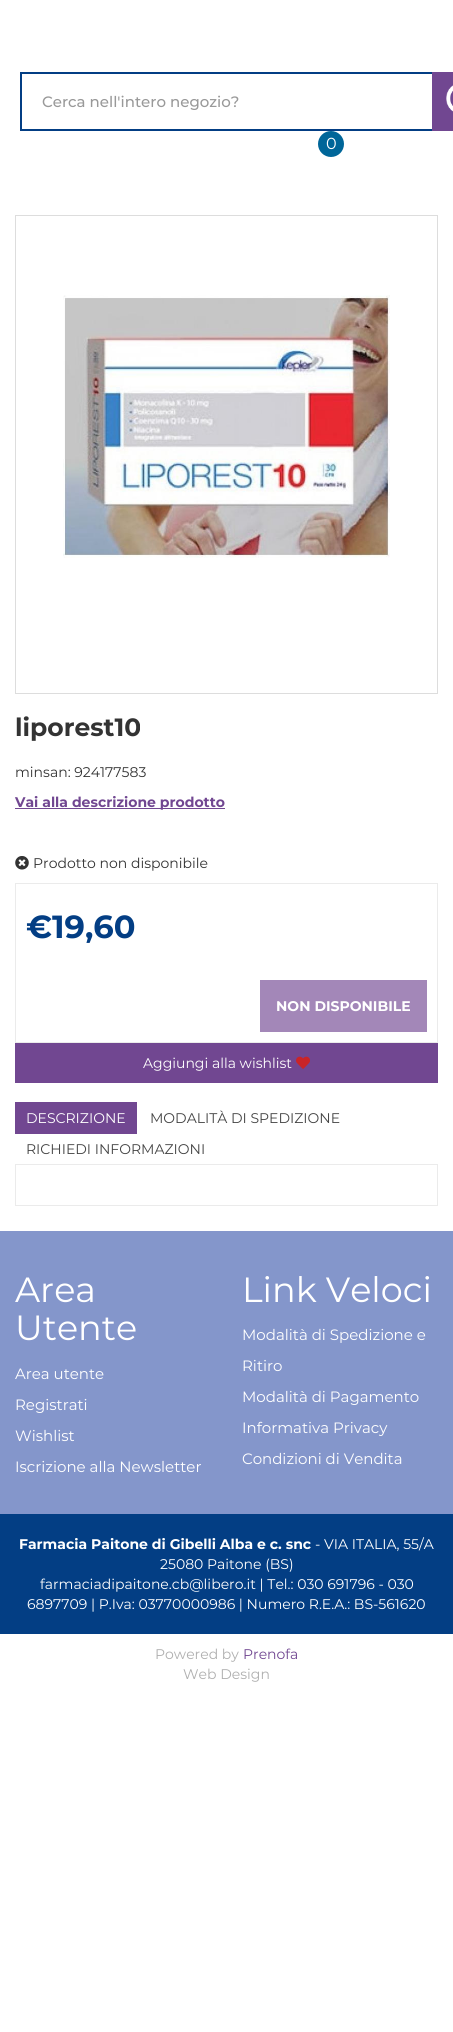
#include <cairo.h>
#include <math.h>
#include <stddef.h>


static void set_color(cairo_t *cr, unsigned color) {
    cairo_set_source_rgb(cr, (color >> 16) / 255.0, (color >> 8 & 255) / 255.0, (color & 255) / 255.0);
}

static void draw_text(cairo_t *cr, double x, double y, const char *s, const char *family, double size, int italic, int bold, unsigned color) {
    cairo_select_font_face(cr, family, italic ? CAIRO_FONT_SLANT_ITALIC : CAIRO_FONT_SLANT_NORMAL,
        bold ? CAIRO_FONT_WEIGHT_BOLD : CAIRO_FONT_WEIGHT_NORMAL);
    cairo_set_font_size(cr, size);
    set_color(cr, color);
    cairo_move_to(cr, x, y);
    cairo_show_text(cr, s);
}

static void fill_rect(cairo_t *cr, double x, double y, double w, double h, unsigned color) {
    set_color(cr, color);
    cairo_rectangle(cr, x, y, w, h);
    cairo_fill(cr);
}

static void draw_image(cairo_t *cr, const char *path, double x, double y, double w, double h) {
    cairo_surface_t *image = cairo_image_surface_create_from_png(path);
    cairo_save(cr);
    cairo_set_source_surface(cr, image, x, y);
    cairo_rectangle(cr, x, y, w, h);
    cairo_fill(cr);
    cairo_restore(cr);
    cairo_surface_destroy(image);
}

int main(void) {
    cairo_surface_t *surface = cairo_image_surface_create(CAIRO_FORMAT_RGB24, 453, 2032);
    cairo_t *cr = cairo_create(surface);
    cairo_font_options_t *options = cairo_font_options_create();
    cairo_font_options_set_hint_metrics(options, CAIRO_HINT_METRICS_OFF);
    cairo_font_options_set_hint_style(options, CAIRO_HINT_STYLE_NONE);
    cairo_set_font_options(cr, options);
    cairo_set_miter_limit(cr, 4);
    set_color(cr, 0xFFFFFF);
    cairo_paint(cr);
    fill_rect(cr, 20, 72, 412, 2, 0x033E84);
    fill_rect(cr, 20, 129, 412, 2, 0x033E84);
    fill_rect(cr, 20, 72, 2, 59, 0x033E84);
    draw_text(cr, 42, 107, "Cerca nell'intero negozio?", "Montserrat Medium", 15, 0, 0, 0x999999);
    fill_rect(cr, 432, 72, 21, 59, 0x714791);
    draw_image(cr, "assets/img1.png", 446, 85, 7, 27);
    set_color(cr, 0x006699);
    cairo_arc(cr, 331, 144, 13, 0, 2 * M_PI);
    cairo_fill(cr);
    draw_text(cr, 326, 149, "0", "Montserrat", 16, 0, 0, 0xFFFFFF);
    cairo_rectangle(cr, 15.5, 215.5, 422, 478);
    set_color(cr, 0xDDDDDD);
    cairo_set_line_width(cr, 1);
    cairo_stroke(cr);
    draw_image(cr, "assets/img2.png", 63, 295, 327, 263);
    draw_text(cr, 15, 736, "liporest10", "Montserrat", 25, 0, 1, 0x333333);
    draw_text(cr, 15, 777, "minsan: 924177583", "Montserrat", 14, 0, 0, 0x333333);
    fill_rect(cr, 15, 808, 210, 1, 0x714791);
    draw_text(cr, 15, 807, "Vai alla descrizione prodotto", "Montserrat", 14, 0, 1, 0x714791);
    draw_image(cr, "assets/img3.png", 15, 856, 14, 14);
    draw_text(cr, 33, 868, "Prodotto non disponibile", "Montserrat", 14, 0, 0, 0x333333);
    cairo_rectangle(cr, 15.5, 883.5, 422, 159);
    set_color(cr, 0xEBEBEB);
    cairo_stroke(cr);
    draw_text(cr, 26, 938, "€19,60", "Montserrat", 32, 0, 1, 0x033E84);
    fill_rect(cr, 260, 980, 167, 52, 0xA387B8);
    draw_text(cr, 276, 1011, "NON DISPONIBILE", "Montserrat", 14, 0, 1, 0xFFFFFF);
    fill_rect(cr, 15, 1043, 423, 40, 0x714791);
    draw_text(cr, 143, 1068, "Aggiungi alla wishlist", "Montserrat", 14, 0, 0, 0xFFFFFF);
    draw_image(cr, "assets/img4.png", 296, 1056, 14, 13);
    fill_rect(cr, 15, 1102, 122, 32, 0x714791);
    draw_text(cr, 26, 1123, "DESCRIZIONE", "Montserrat", 14, 0, 0, 0xFFFFFF);
    draw_text(cr, 150, 1123, "MODALITÀ DI SPEDIZIONE", "Montserrat", 14, 0, 0, 0x444444);
    draw_text(cr, 26, 1154, "RICHIEDI INFORMAZIONI", "Montserrat", 14, 0, 0, 0x444444);
    cairo_rectangle(cr, 15.5, 1164.5, 422, 41);
    set_color(cr, 0xEBEBEB);
    cairo_stroke(cr);
    fill_rect(cr, 0, 1231, 453, 283, 0x8496CB);
    draw_text(cr, 15, 1302, "Area", "Montserrat", 35, 0, 0, 0xFFFFFF);
    draw_text(cr, 15, 1340, "Utente", "Montserrat", 35, 0, 0, 0xFFFFFF);
    draw_text(cr, 15, 1379, "Area utente", "Montserrat", 15, 0, 0, 0xFFFFFF);
    draw_text(cr, 15, 1410, "Registrati", "Montserrat", 15, 0, 0, 0xFFFFFF);
    draw_text(cr, 15, 1441, "Wishlist", "Montserrat", 15, 0, 0, 0xFFFFFF);
    draw_text(cr, 15, 1472, "Iscrizione alla Newsletter", "Montserrat", 15, 0, 0, 0xFFFFFF);
    draw_text(cr, 242, 1302, "Link Veloci", "Montserrat", 35, 0, 0, 0xFFFFFF);
    draw_text(cr, 242, 1340, "Modalità di Spedizione e", "Montserrat", 15, 0, 0, 0xFFFFFF);
    draw_text(cr, 242, 1371, "Ritiro", "Montserrat", 15, 0, 0, 0xFFFFFF);
    draw_text(cr, 242, 1402, "Modalità di Pagamento", "Montserrat", 15, 0, 0, 0xFFFFFF);
    draw_text(cr, 242, 1433, "Informativa Privacy", "Montserrat", 15, 0, 0, 0xFFFFFF);
    draw_text(cr, 242, 1464, "Condizioni di Vendita", "Montserrat", 15, 0, 0, 0xFFFFFF);
    fill_rect(cr, 0, 1514, 453, 120, 0x033E84);
    draw_text(cr, 19, 1549, "Farmacia Paitone di Gibelli Alba e c. snc", "Montserrat", 14, 0, 1, 0xFFFFFF);
    draw_text(cr, 315, 1549, "- VIA ITALIA, 55/A", "Montserrat", 14, 0, 0, 0xFFFFFF);
    draw_text(cr, 160, 1569, "25080 Paitone (BS)", "Montserrat", 14, 0, 0, 0xFFFFFF);
    draw_text(cr, 40, 1589, "farmaciadipaitone.cb@libero.it | Tel.: 030 691796 - 030", "Montserrat", 14, 0, 0, 0xFFFFFF);
    draw_text(cr, 27, 1609, "6897709 | P.Iva: 03770000986 | Numero R.E.A.: BS-561620", "Montserrat", 14, 0, 0, 0xFFFFFF);
    draw_text(cr, 155, 1659, "Powered by", "Montserrat", 14, 0, 0, 0xAFAFAF);
    draw_text(cr, 243, 1659, "Prenofa", "Montserrat", 14, 0, 0, 0x714791);
    draw_text(cr, 183, 1679, "Web Design", "Montserrat", 14, 0, 0, 0xAFAFAF);
    cairo_surface_write_to_png(surface, "output.png");
    cairo_font_options_destroy(options);
    cairo_destroy(cr);
    cairo_surface_destroy(surface);
    return 0;
}
